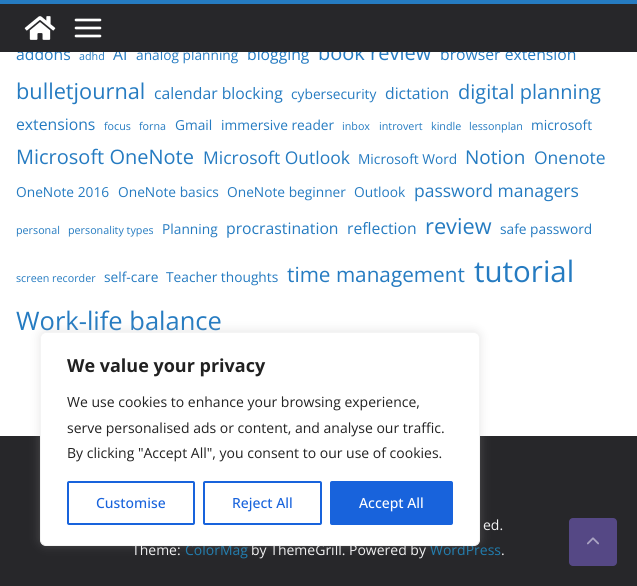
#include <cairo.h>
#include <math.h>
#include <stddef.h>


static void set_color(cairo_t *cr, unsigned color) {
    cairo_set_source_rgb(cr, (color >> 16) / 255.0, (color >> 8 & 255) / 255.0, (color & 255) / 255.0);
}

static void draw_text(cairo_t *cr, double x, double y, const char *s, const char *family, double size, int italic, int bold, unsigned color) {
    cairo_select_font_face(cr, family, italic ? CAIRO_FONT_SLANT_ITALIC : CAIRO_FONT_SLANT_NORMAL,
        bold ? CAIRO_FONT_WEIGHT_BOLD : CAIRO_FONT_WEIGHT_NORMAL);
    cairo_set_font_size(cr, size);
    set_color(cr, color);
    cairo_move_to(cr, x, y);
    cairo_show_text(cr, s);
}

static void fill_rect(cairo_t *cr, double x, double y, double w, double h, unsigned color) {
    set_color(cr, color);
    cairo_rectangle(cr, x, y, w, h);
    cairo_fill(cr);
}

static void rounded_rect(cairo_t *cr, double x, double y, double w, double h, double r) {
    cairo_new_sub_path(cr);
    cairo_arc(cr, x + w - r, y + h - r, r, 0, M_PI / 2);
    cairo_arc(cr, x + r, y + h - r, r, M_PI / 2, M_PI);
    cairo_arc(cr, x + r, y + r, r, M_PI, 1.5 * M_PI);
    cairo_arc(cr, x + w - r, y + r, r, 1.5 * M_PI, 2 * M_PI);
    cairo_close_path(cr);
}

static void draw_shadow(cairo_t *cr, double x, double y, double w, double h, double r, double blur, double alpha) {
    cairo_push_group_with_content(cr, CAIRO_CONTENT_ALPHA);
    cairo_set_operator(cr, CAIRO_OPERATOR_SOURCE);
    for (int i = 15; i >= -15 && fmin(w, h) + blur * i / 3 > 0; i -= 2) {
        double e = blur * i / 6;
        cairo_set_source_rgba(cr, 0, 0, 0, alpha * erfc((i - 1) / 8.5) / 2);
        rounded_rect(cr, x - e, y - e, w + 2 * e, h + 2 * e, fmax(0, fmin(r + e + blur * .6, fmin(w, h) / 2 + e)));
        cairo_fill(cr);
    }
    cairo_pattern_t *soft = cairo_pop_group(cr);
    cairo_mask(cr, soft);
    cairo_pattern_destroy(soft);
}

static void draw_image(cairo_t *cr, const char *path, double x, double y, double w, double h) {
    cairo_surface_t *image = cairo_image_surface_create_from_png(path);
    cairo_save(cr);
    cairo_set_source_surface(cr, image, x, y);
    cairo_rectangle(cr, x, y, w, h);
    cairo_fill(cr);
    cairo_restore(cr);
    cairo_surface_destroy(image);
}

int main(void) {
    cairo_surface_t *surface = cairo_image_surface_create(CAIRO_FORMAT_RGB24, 637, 586);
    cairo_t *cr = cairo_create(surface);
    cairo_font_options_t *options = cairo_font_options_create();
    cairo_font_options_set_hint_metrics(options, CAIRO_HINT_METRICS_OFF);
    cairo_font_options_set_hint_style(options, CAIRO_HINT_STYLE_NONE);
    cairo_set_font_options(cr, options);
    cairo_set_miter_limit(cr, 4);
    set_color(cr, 0xFFFFFF);
    cairo_paint(cr);
    draw_text(cr, 16, 60, "addons", "Open Sans", 15.75, 0, 0, 0x257BC1);
    draw_text(cr, 79, 60, "adhd", "Open Sans", 10.75, 0, 0, 0x257BC1);
    draw_text(cr, 113, 60, "AI", "Open Sans", 15.75, 0, 0, 0x257BC1);
    draw_text(cr, 136, 60, "analog planning", "Open Sans", 13.75, 0, 0, 0x257BC1);
    draw_text(cr, 247, 60, "blogging", "Open Sans", 15.75, 0, 0, 0x257BC1);
    draw_text(cr, 318, 60, "book review", "Open Sans", 20, 0, 0, 0x257BC1);
    draw_text(cr, 440, 60, "browser extension", "Open Sans", 15.75, 0, 0, 0x257BC1);
    fill_rect(cr, 0, 4, 637, 48, 0x27272A);
    fill_rect(cr, 0, 0, 637, 4, 0x257BC1);
    draw_image(cr, "assets/img1.png", 24, 16, 32, 24);
    draw_image(cr, "assets/img2.png", 74, 18, 28, 20);
    draw_text(cr, 16, 99, "bulletjournal", "Open Sans", 21.75, 0, 0, 0x257BC1);
    draw_text(cr, 154, 99, "calendar blocking", "Open Sans", 15.75, 0, 0, 0x257BC1);
    draw_text(cr, 291, 99, "cybersecurity", "Open Sans", 13.75, 0, 0, 0x257BC1);
    draw_text(cr, 385, 99, "dictation", "Open Sans", 15.75, 0, 0, 0x257BC1);
    draw_text(cr, 458, 99, "digital planning", "Open Sans", 20, 0, 0, 0x257BC1);
    draw_text(cr, 16, 130, "extensions", "Open Sans", 15.75, 0, 0, 0x257BC1);
    draw_text(cr, 104, 130, "focus", "Open Sans", 10.75, 0, 0, 0x257BC1);
    draw_text(cr, 139, 130, "forna", "Open Sans", 10.75, 0, 0, 0x257BC1);
    draw_text(cr, 175, 130, "Gmail", "Open Sans", 13.75, 0, 0, 0x257BC1);
    draw_text(cr, 221, 130, "immersive reader", "Open Sans", 13.75, 0, 0, 0x257BC1);
    draw_text(cr, 342, 130, "inbox", "Open Sans", 10.75, 0, 0, 0x257BC1);
    draw_text(cr, 379, 130, "introvert", "Open Sans", 10.75, 0, 0, 0x257BC1);
    draw_text(cr, 431, 130, "kindle", "Open Sans", 10.75, 0, 0, 0x257BC1);
    draw_text(cr, 469, 130, "lessonplan", "Open Sans", 10.75, 0, 0, 0x257BC1);
    draw_text(cr, 531, 130, "microsoft", "Open Sans", 13.75, 0, 0, 0x257BC1);
    draw_text(cr, 16, 164, "Microsoft OneNote", "Open Sans", 20, 0, 0, 0x257BC1);
    draw_text(cr, 203, 164, "Microsoft Outlook", "Open Sans", 17.5, 0, 0, 0x257BC1);
    draw_text(cr, 358, 164, "Microsoft Word", "Open Sans", 13.75, 0, 0, 0x257BC1);
    draw_text(cr, 465, 164, "Notion", "Open Sans", 19, 0, 0, 0x257BC1);
    draw_text(cr, 534, 164, "Onenote", "Open Sans", 17.5, 0, 0, 0x257BC1);
    draw_text(cr, 16, 197, "OneNote 2016", "Open Sans", 13.75, 0, 0, 0x257BC1);
    draw_text(cr, 118, 197, "OneNote basics", "Open Sans", 13.75, 0, 0, 0x257BC1);
    draw_text(cr, 227, 197, "OneNote beginner", "Open Sans", 13.75, 0, 0, 0x257BC1);
    draw_text(cr, 354, 197, "Outlook", "Open Sans", 13.75, 0, 0, 0x257BC1);
    draw_text(cr, 414, 197, "password managers", "Open Sans", 17.5, 0, 0, 0x257BC1);
    draw_text(cr, 16, 234, "personal", "Open Sans", 10.75, 0, 0, 0x257BC1);
    draw_text(cr, 68, 234, "personality types", "Open Sans", 10.75, 0, 0, 0x257BC1);
    draw_text(cr, 162, 234, "Planning", "Open Sans", 13.75, 0, 0, 0x257BC1);
    draw_text(cr, 226, 234, "procrastination", "Open Sans", 15.75, 0, 0, 0x257BC1);
    draw_text(cr, 347, 234, "reflection", "Open Sans", 15.75, 0, 0, 0x257BC1);
    draw_text(cr, 425, 234, "review", "Open Sans", 21.75, 0, 0, 0x257BC1);
    draw_text(cr, 500, 234, "safe password", "Open Sans", 13.75, 0, 0, 0x257BC1);
    draw_text(cr, 16, 282, "screen recorder", "Open Sans", 10.75, 0, 0, 0x257BC1);
    draw_text(cr, 104, 282, "self-care", "Open Sans", 13.75, 0, 0, 0x257BC1);
    draw_text(cr, 166, 282, "Teacher thoughts", "Open Sans", 13.75, 0, 0, 0x257BC1);
    draw_text(cr, 287, 282, "time management", "Open Sans", 20.75, 0, 0, 0x257BC1);
    draw_text(cr, 474, 282, "tutorial", "Open Sans", 29.5, 0, 0, 0x257BC1);
    draw_text(cr, 16, 330, "Work-life balance", "Open Sans", 25.5, 0, 0, 0x257BC1);
    fill_rect(cr, 0, 436, 637, 150, 0x27272A);
    draw_text(cr, 483, 530, "ed.", "Open Sans", 14, 0, 0, 0xF4F4F5);
    draw_text(cr, 132, 555, "Theme:", "Open Sans", 14, 0, 0, 0xF4F4F5);
    draw_text(cr, 185, 555, "ColorMag", "Open Sans", 14, 0, 0, 0x207DAF);
    draw_text(cr, 251, 555, "by ThemeGrill. Powered by", "Open Sans", 14, 0, 0, 0xF4F4F5);
    draw_text(cr, 430, 555, "WordPress", "Open Sans", 14, 0, 0, 0x207DAF);
    draw_text(cr, 501, 555, ".", "Open Sans", 14, 0, 0, 0xF4F4F5);
    set_color(cr, 0x554885);
    rounded_rect(cr, 569, 518, 48, 48, 4);
    cairo_fill(cr);
    draw_image(cr, "assets/img3.png", 587, 537, 12, 8);
    set_color(cr, 0xACABAB);
    draw_shadow(cr, 40, 331, 440, 214, 6, 5, 0.3);
    set_color(cr, 0xFFFFFF);
    rounded_rect(cr, 40.5, 332.5, 439, 213, 5.5);
    cairo_fill_preserve(cr);
    set_color(cr, 0xF4F4F4);
    cairo_set_line_width(cr, 1);
    cairo_stroke(cr);
    draw_text(cr, 67, 372, "We value your privacy", "Open Sans", 18, 0, 1, 0x212121);
    draw_text(cr, 67, 407, "We use cookies to enhance your browsing experience,", "Open Sans", 14, 0, 0, 0x212121);
    draw_text(cr, 67, 433, "serve personalised ads or content, and analyse our traffic.", "Open Sans", 14, 0, 0, 0x212121);
    draw_text(cr, 67, 458, "By clicking \"Accept All\", you consent to our use of cookies.", "Open Sans", 14, 0, 0, 0x212121);
    rounded_rect(cr, 68, 482, 126, 42, 1);
    set_color(cr, 0x1863DC);
    cairo_set_line_width(cr, 2);
    cairo_stroke(cr);
    draw_text(cr, 96, 508, "Customise", "Open Sans Medium", 14, 0, 0, 0x1863DC);
    rounded_rect(cr, 204, 482, 117, 42, 1);
    cairo_stroke(cr);
    draw_text(cr, 232, 508, "Reject All", "Open Sans Medium", 14, 0, 0, 0x1863DC);
    rounded_rect(cr, 331, 482, 121, 42, 1);
    cairo_fill_preserve(cr);
    cairo_stroke(cr);
    draw_text(cr, 359, 508, "Accept All", "Open Sans Medium", 14, 0, 0, 0xFFFFFF);
    cairo_surface_write_to_png(surface, "output.png");
    cairo_font_options_destroy(options);
    cairo_destroy(cr);
    cairo_surface_destroy(surface);
    return 0;
}
